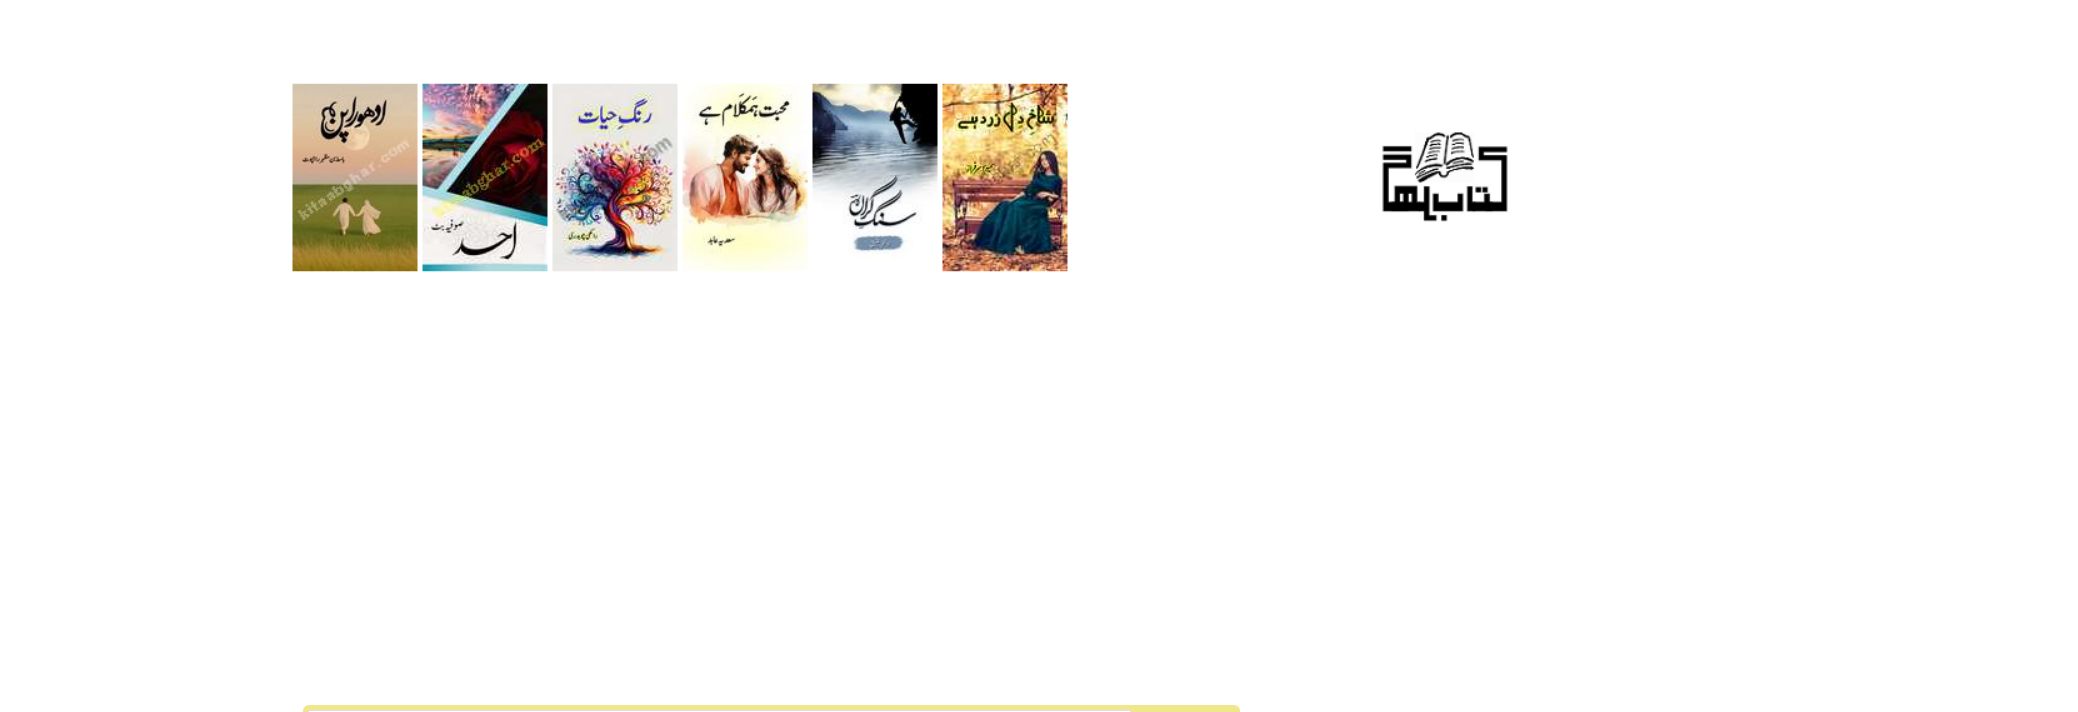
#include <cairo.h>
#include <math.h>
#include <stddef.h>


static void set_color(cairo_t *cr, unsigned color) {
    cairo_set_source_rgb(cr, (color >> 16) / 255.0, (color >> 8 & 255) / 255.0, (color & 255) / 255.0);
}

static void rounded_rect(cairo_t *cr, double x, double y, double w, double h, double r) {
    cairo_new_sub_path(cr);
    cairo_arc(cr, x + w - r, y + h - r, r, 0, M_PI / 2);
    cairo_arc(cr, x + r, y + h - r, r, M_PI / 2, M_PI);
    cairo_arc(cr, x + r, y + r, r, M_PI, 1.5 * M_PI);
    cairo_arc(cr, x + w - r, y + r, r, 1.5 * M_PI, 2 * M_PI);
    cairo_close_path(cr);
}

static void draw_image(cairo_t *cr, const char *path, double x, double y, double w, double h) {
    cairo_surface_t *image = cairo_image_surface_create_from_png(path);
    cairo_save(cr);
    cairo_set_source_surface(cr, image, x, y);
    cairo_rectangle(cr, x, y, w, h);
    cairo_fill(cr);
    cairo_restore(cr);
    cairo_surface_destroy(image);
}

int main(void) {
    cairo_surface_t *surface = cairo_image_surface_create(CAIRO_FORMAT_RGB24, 2078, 712);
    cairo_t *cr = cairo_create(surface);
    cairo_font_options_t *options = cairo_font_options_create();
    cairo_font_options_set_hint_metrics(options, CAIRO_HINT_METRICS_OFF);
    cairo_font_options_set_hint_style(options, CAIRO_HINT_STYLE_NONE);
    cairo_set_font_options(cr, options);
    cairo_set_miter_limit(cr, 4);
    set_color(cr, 0xFFFFFF);
    cairo_paint(cr);
    draw_image(cr, "assets/img1.png", 292, 83, 126, 189);
    draw_image(cr, "assets/img2.png", 422, 83, 126, 189);
    draw_image(cr, "assets/img3.png", 552, 83, 126, 189);
    draw_image(cr, "assets/img4.png", 682, 83, 126, 189);
    draw_image(cr, "assets/img5.png", 812, 83, 126, 176);
    draw_image(cr, "assets/img6.png", 942, 83, 126, 189);
    draw_image(cr, "assets/img7.png", 1382, 132, 126, 90);
    set_color(cr, 0xF0E68C);
    rounded_rect(cr, 303, 705, 937, 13, 6);
    cairo_fill(cr);
    set_color(cr, 0xFFFFFF);
    cairo_rectangle(cr, 308.5, 710.5, 822, 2);
    cairo_fill_preserve(cr);
    set_color(cr, 0xDFE1E5);
    cairo_set_line_width(cr, 1);
    cairo_stroke(cr);
    cairo_surface_write_to_png(surface, "output.png");
    cairo_font_options_destroy(options);
    cairo_destroy(cr);
    cairo_surface_destroy(surface);
    return 0;
}
